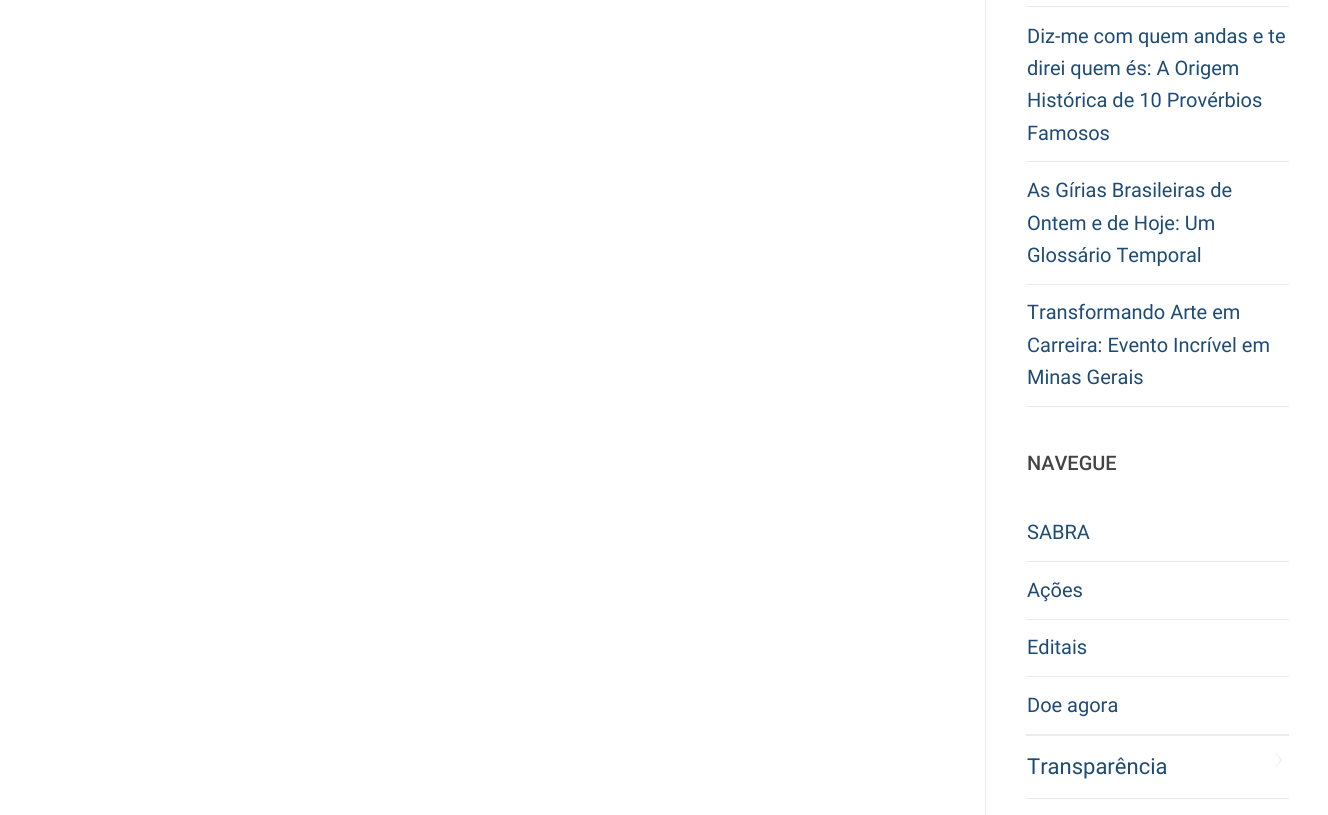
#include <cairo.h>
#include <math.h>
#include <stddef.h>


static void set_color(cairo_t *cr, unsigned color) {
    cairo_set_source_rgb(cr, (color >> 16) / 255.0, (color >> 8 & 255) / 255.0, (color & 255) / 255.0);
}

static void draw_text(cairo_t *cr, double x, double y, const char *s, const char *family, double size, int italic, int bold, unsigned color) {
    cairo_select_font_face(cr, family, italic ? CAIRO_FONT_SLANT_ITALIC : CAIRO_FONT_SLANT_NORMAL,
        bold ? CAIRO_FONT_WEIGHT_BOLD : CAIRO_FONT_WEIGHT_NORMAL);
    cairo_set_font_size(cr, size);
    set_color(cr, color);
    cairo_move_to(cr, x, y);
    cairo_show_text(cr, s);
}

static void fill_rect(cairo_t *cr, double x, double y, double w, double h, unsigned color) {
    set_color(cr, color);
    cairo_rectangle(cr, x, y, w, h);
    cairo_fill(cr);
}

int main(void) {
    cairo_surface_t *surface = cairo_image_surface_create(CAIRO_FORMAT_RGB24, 1328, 815);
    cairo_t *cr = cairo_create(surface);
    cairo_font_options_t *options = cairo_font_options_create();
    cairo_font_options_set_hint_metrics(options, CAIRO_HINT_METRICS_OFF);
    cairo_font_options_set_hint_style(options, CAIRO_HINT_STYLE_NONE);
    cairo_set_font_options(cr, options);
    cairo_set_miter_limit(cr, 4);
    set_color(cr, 0xFFFFFF);
    cairo_paint(cr);
    fill_rect(cr, 985, 0, 1, 815, 0xEAECEE);
    fill_rect(cr, 1026, 6, 263, 1, 0xEAECEE);
    fill_rect(cr, 1026, 161, 263, 1, 0xEAECEE);
    draw_text(cr, 1027, 43, "Diz-me com quem andas e te", "Roboto", 20, 0, 0, 0x1E4B75);
    draw_text(cr, 1027, 75, "direi quem és: A Origem", "Roboto", 20, 0, 0, 0x1E4B75);
    draw_text(cr, 1027, 107, "Histórica de 10 Provérbios", "Roboto", 20, 0, 0, 0x1E4B75);
    draw_text(cr, 1027, 140, "Famosos", "Roboto", 20, 0, 0, 0x1E4B75);
    fill_rect(cr, 1026, 284, 263, 1, 0xEAECEE);
    draw_text(cr, 1027, 197, "As Gírias Brasileiras de", "Roboto", 20, 0, 0, 0x1E4B75);
    draw_text(cr, 1027, 230, "Ontem e de Hoje: Um", "Roboto", 20, 0, 0, 0x1E4B75);
    draw_text(cr, 1027, 262, "Glossário Temporal", "Roboto", 20, 0, 0, 0x1E4B75);
    fill_rect(cr, 1026, 406, 263, 1, 0xEAECEE);
    draw_text(cr, 1027, 319, "Transformando Arte em", "Roboto", 20, 0, 0, 0x1E4B75);
    draw_text(cr, 1027, 352, "Carreira: Evento Incrível em", "Roboto", 20, 0, 0, 0x1E4B75);
    draw_text(cr, 1027, 384, "Minas Gerais", "Roboto", 20, 0, 0, 0x1E4B75);
    draw_text(cr, 1027, 470, "NAVEGUE", "Roboto Medium", 20, 0, 0, 0x444444);
    fill_rect(cr, 1026, 561, 263, 1, 0xEAECEE);
    draw_text(cr, 1027, 539, "SABRA", "Roboto", 20, 0, 0, 0x1E4B75);
    fill_rect(cr, 1026, 619, 263, 1, 0xEAECEE);
    draw_text(cr, 1027, 597, "Ações", "Roboto", 20, 0, 0, 0x1E4B75);
    fill_rect(cr, 1026, 676, 263, 1, 0xEAECEE);
    draw_text(cr, 1027, 654, "Editais", "Roboto", 20, 0, 0, 0x1E4B75);
    fill_rect(cr, 1026, 734, 263, 2, 0xEAECEE);
    draw_text(cr, 1027, 712, "Doe agora", "Roboto", 20, 0, 0, 0x1E4B75);
    fill_rect(cr, 1026, 798, 263, 1, 0xEAECEE);
    cairo_new_path(cr);
    cairo_move_to(cr, 1275, 767.5);
    cairo_line_to(cr, 1275, 752.5);
    cairo_line_to(cr, 1282.5, 760);
    cairo_close_path(cr);
    cairo_fill(cr);
    set_color(cr, 0xFFFFFF);
    cairo_new_path(cr);
    cairo_move_to(cr, 1274, 767.5);
    cairo_line_to(cr, 1274, 752.5);
    cairo_line_to(cr, 1281, 760);
    cairo_close_path(cr);
    cairo_fill(cr);
    draw_text(cr, 1027, 774, "Transparência", "Roboto", 22, 0, 0, 0x1E4B75);
    cairo_surface_write_to_png(surface, "output.png");
    cairo_font_options_destroy(options);
    cairo_destroy(cr);
    cairo_surface_destroy(surface);
    return 0;
}
